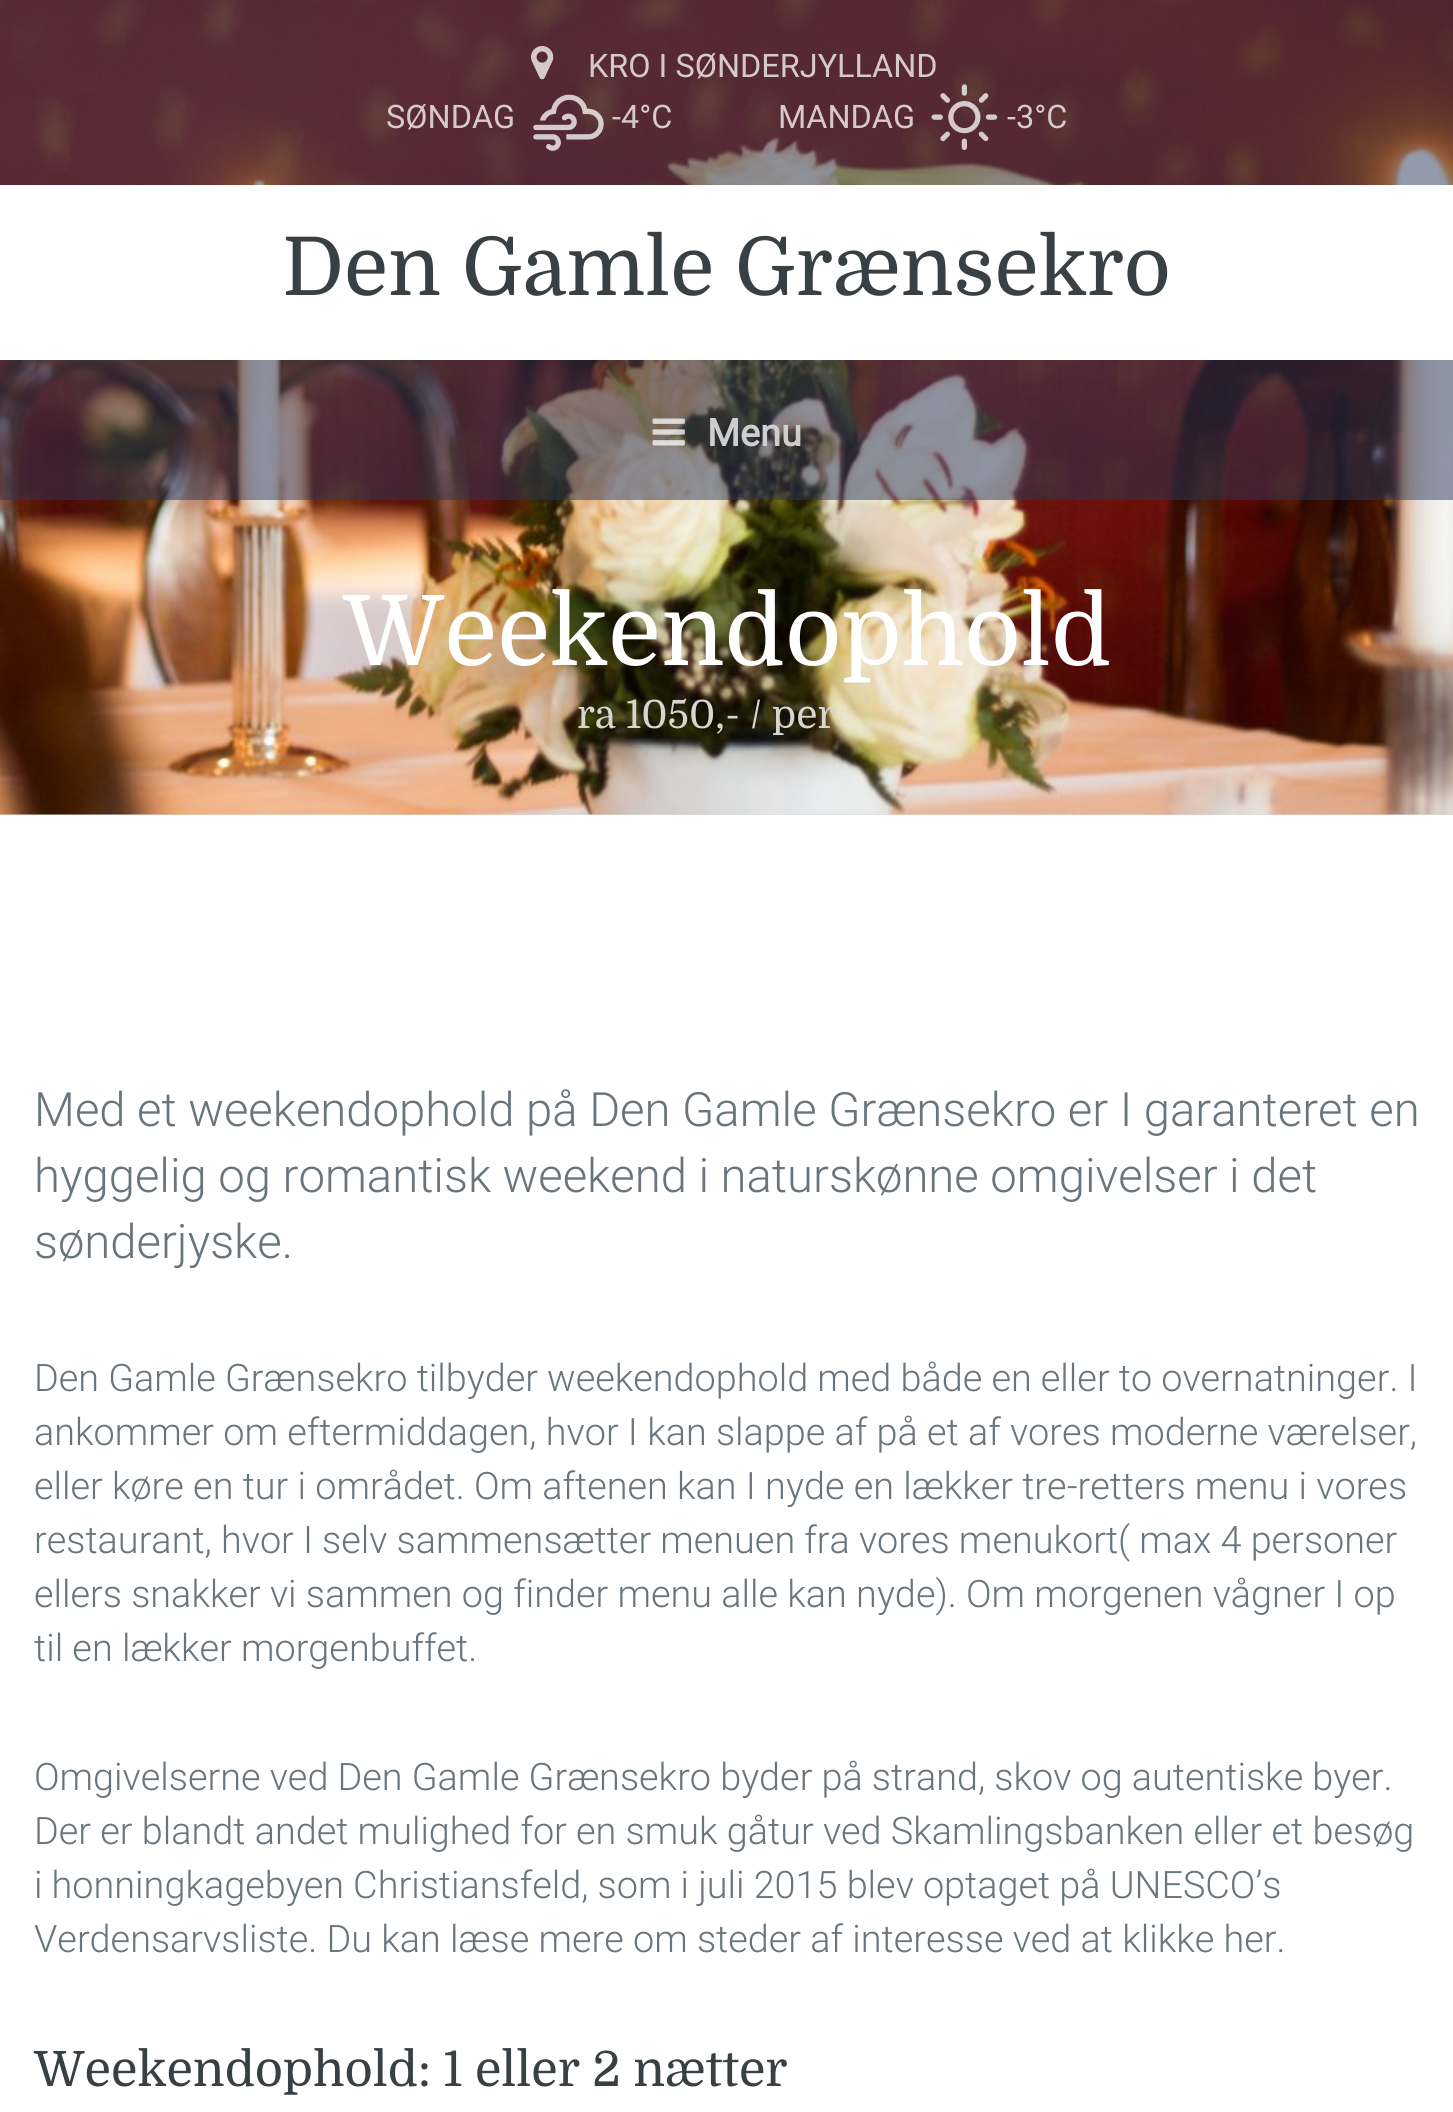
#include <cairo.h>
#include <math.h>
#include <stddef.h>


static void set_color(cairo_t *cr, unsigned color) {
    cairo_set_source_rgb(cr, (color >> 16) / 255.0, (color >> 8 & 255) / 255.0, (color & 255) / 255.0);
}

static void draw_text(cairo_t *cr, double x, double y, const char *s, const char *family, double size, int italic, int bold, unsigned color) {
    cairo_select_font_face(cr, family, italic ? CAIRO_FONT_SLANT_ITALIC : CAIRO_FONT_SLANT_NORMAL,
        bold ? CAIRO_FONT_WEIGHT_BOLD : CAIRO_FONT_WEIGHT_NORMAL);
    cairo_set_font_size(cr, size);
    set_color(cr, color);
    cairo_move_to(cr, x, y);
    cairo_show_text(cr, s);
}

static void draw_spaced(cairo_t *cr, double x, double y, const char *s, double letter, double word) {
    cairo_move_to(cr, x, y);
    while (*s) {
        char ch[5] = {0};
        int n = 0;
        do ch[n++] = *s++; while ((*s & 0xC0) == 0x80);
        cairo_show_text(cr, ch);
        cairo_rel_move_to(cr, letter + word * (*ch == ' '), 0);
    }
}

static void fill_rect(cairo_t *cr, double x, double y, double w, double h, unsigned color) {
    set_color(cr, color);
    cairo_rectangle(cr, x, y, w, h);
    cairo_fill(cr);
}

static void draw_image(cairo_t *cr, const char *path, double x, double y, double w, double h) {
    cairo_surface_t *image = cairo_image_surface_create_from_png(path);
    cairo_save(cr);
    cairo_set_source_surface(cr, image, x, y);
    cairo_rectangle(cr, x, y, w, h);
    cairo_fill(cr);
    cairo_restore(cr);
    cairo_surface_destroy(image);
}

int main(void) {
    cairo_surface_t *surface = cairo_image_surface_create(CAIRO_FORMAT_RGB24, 1453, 2112);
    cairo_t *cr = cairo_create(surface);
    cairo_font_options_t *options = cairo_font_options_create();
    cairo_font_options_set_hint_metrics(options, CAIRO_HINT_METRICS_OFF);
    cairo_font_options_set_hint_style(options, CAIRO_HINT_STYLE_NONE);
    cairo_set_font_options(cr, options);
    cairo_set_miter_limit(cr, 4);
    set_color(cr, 0xFFFFFF);
    cairo_paint(cr);
    fill_rect(cr, 0, 814, 1453, 1, 0xDADADA);
    draw_image(cr, "assets/img1.png", 0, 0, 1453, 815);
    cairo_set_source_rgba(cr, 0.169, 0.212, 0.345, 0.5);
    cairo_rectangle(cr, 0, 0, 1453, 500);
    cairo_fill(cr);
    draw_image(cr, "assets/img2.png", 531, 46, 23, 34);
    draw_text(cr, 588, 77, "KRO I SØNDERJYLLAND", "Roboto", 32.4, 0, 0, 0xD5C9CC);
    draw_text(cr, 386, 128, "SØNDAG", "Roboto", 32.4, 0, 0, 0xD5C9CC);
    draw_image(cr, "assets/img3.png", 533, 94, 71, 57);
    draw_text(cr, 612, 128, "-4°C", "Roboto", 32.4, 0, 0, 0xD5C9CC);
    draw_text(cr, 778, 128, "MANDAG", "Roboto", 32.4, 0, 0, 0xD5C9CC);
    draw_image(cr, "assets/img4.png", 931, 84, 67, 66);
    draw_text(cr, 1007, 128, "-3°C", "Roboto", 32.4, 0, 0, 0xD5C9CC);
    fill_rect(cr, 0, 185, 1453, 175, 0xFFFFFF);
    draw_text(cr, 282, 295, "Den Gamle Grænsekro", "Domine", 81, 0, 0, 0x394043);
    draw_image(cr, "assets/img5.png", 652, 418, 33, 28);
    draw_text(cr, 707, 446, "Menu", "Roboto", 37.8, 0, 1, 0xCECECE);
    draw_text(cr, 343, 665, "Weekendophold", "Domine", 97.25, 0, 0, 0xFFFFFF);
    draw_text(cr, 577, 728, "ra 1050,- / per", "Domine", 39, 0, 0, 0xD7D5CE);
    draw_text(cr, 34, 1126, "Med et weekendophold på Den Gamle Grænsekro er I garanteret en", "Roboto Light", 47.25, 0, 0, 0x69747B);
    draw_text(cr, 34, 1192, "hyggelig og romantisk weekend i naturskønne omgivelser i det", "Roboto Light", 47.25, 0, 0, 0x69747B);
    draw_text(cr, 34, 1258, "sønderjyske.", "Roboto Light", 47.25, 0, 0, 0x69747B);
    cairo_set_font_size(cr, 37.8);
    draw_spaced(cr, 34, 1391, "Den Gamle Grænsekro tilbyder weekendophold med både en eller to overnatninger. I", 0, -0.1);
    draw_text(cr, 34, 1445, "ankommer om eftermiddagen, hvor I kan slappe af på et af vores moderne værelser,", "Roboto Light", 37.8, 0, 0, 0x69747B);
    draw_text(cr, 34, 1499, "eller køre en tur i området. Om aftenen kan I nyde en lækker tre-retters menu i vores", "Roboto Light", 37.8, 0, 0, 0x69747B);
    draw_spaced(cr, 34, 1553, "restaurant, hvor I selv sammensætter menuen fra vores menukort( max 4 personer", 0, -0.1);
    draw_text(cr, 34, 1607, "ellers snakker vi sammen og finder menu alle kan nyde). Om morgenen vågner I op", "Roboto Light", 37.8, 0, 0, 0x69747B);
    draw_text(cr, 34, 1661, "til en lækker morgenbuffet.", "Roboto Light", 37.8, 0, 0, 0x69747B);
    draw_spaced(cr, 34, 1790, "Omgivelserne ved Den Gamle Grænsekro byder på strand, skov og autentiske byer.", 0, -0.1);
    draw_text(cr, 34, 1844, "Der er blandt andet mulighed for en smuk gåtur ved Skamlingsbanken eller et besøg", "Roboto Light", 37.8, 0, 0, 0x69747B);
    draw_spaced(cr, 34, 1898, "i honningkagebyen Christiansfeld, som i juli 2015 blev optaget på UNESCO’s", 0, -0.1);
    draw_text(cr, 34, 1952, "Verdensarvsliste. Du kan læse mere om steder af interesse ved at klikke her.", "Roboto Light", 37.8, 0, 0, 0x69747B);
    draw_text(cr, 34, 2086, "Weekendophold: 1 eller 2 nætter", "Domine", 48.6, 0, 0, 0x394043);
    cairo_surface_write_to_png(surface, "output.png");
    cairo_font_options_destroy(options);
    cairo_destroy(cr);
    cairo_surface_destroy(surface);
    return 0;
}
